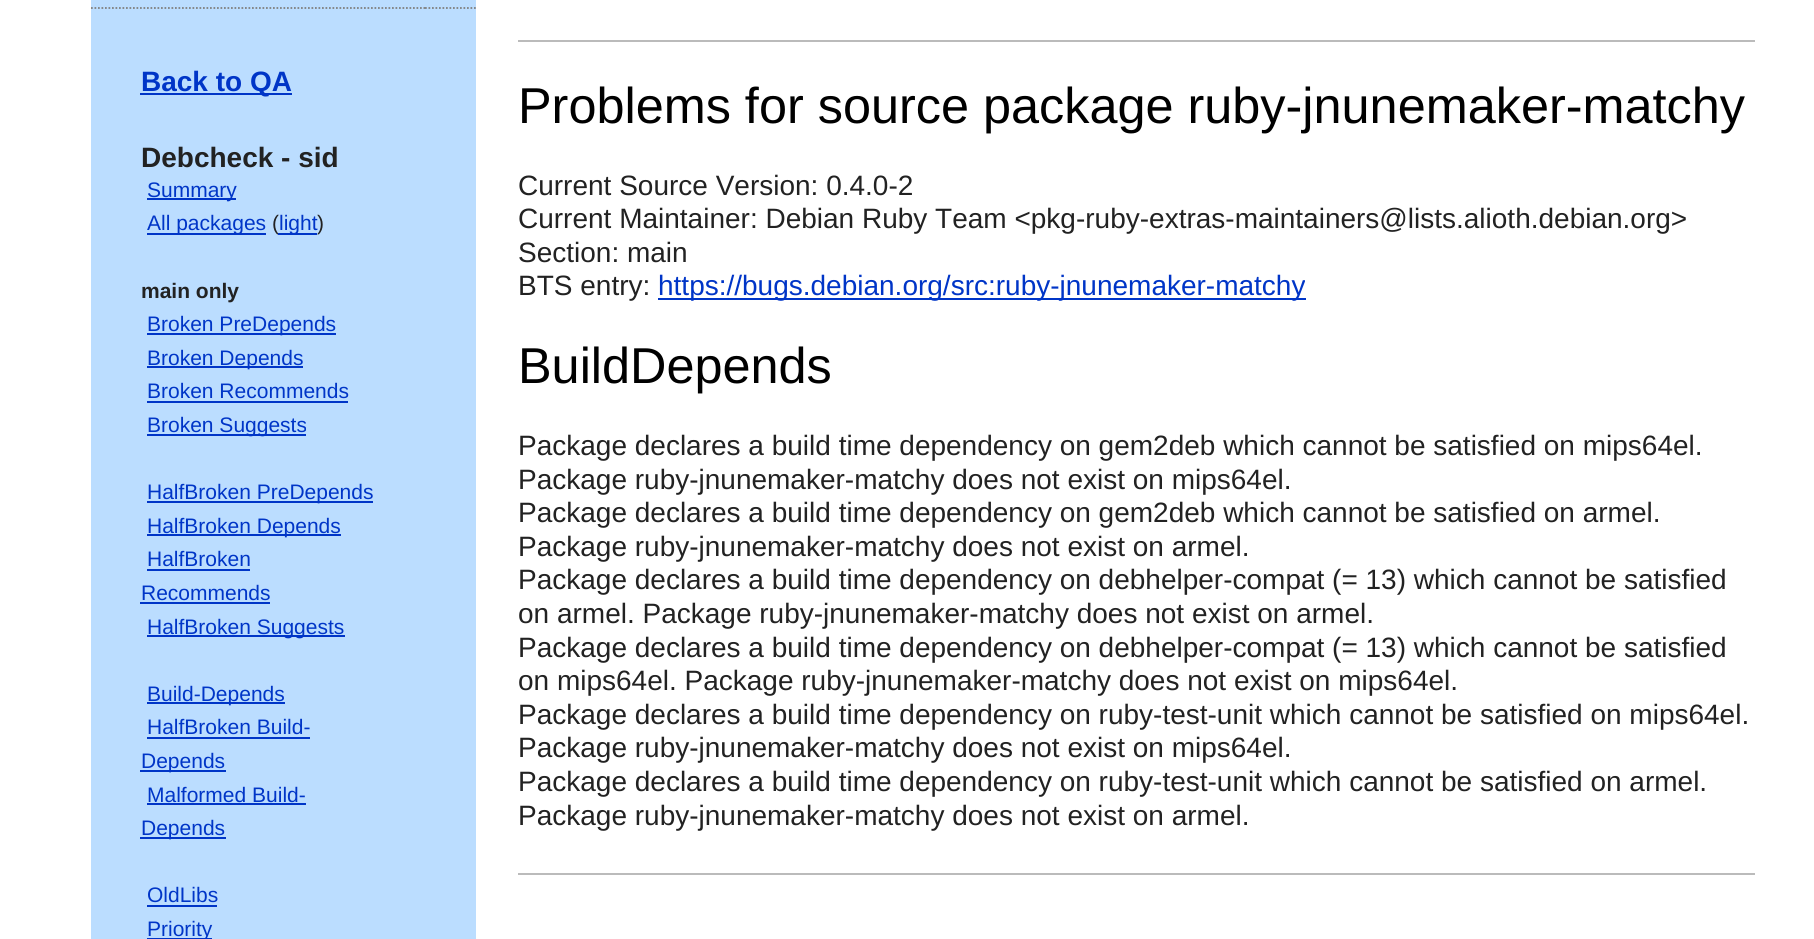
#include <cairo.h>
#include <math.h>
#include <stddef.h>


static void set_color(cairo_t *cr, unsigned color) {
    cairo_set_source_rgb(cr, (color >> 16) / 255.0, (color >> 8 & 255) / 255.0, (color & 255) / 255.0);
}

static void draw_text(cairo_t *cr, double x, double y, const char *s, const char *family, double size, int italic, int bold, unsigned color) {
    cairo_select_font_face(cr, family, italic ? CAIRO_FONT_SLANT_ITALIC : CAIRO_FONT_SLANT_NORMAL,
        bold ? CAIRO_FONT_WEIGHT_BOLD : CAIRO_FONT_WEIGHT_NORMAL);
    cairo_set_font_size(cr, size);
    set_color(cr, color);
    cairo_move_to(cr, x, y);
    cairo_show_text(cr, s);
}

static void fill_rect(cairo_t *cr, double x, double y, double w, double h, unsigned color) {
    set_color(cr, color);
    cairo_rectangle(cr, x, y, w, h);
    cairo_fill(cr);
}

int main(void) {
    cairo_surface_t *surface = cairo_image_surface_create(CAIRO_FORMAT_RGB24, 1814, 939);
    cairo_t *cr = cairo_create(surface);
    cairo_font_options_t *options = cairo_font_options_create();
    cairo_font_options_set_hint_metrics(options, CAIRO_HINT_METRICS_OFF);
    cairo_font_options_set_hint_style(options, CAIRO_HINT_STYLE_NONE);
    cairo_set_font_options(cr, options);
    cairo_set_miter_limit(cr, 4);
    set_color(cr, 0xFFFFFF);
    cairo_paint(cr);
    fill_rect(cr, 91, 0, 385, 939, 0xBBDDFF);
    cairo_new_path(cr);
    cairo_move_to(cr, 91, 8);
    cairo_line_to(cr, 140, 8);
    set_color(cr, 0x808080);
    cairo_set_line_width(cr, 1.8);
    cairo_set_dash(cr, (double[]){1.75, 1.75}, 2, 0);
    cairo_stroke(cr);
    cairo_new_path(cr);
    cairo_move_to(cr, 425, 8);
    cairo_line_to(cr, 476, 8);
    cairo_stroke(cr);
    cairo_new_path(cr);
    cairo_move_to(cr, 140, 8);
    cairo_line_to(cr, 425, 8);
    cairo_stroke(cr);
    fill_rect(cr, 140, 93, 152, 2, 0x0035C7);
    draw_text(cr, 141, 91, "Back to QA", "Liberation Sans", 28, 0, 1, 0x0035C7);
    draw_text(cr, 141, 167, "Debcheck - sid", "Liberation Sans", 28, 0, 1, 0x222222);
    fill_rect(cr, 147, 198, 89, 2, 0x0035C7);
    draw_text(cr, 147, 197, "Summary", "Liberation Sans", 21, 0, 0, 0x0035C7);
    fill_rect(cr, 147, 233, 119, 2, 0x0035C7);
    draw_text(cr, 147, 230, "All packages", "Liberation Sans", 21, 0, 0, 0x0035C7);
    draw_text(cr, 272, 230, "(", "Liberation Sans", 21, 0, 0, 0x222222);
    fill_rect(cr, 278, 233, 39, 2, 0x0035C7);
    draw_text(cr, 279, 230, "light", "Liberation Sans", 21, 0, 0, 0x0035C7);
    draw_text(cr, 317, 230, ")", "Liberation Sans", 21, 0, 0, 0x222222);
    draw_text(cr, 141, 298, "main only", "Liberation Sans", 21, 0, 1, 0x222222);
    fill_rect(cr, 147, 333, 189, 2, 0x0035C7);
    draw_text(cr, 147, 331, "Broken PreDepends", "Liberation Sans", 21, 0, 0, 0x0035C7);
    fill_rect(cr, 147, 366, 156, 2, 0x0035C7);
    draw_text(cr, 147, 365, "Broken Depends", "Liberation Sans", 21, 0, 0, 0x0035C7);
    draw_text(cr, 147, 398, "Broken Recommends", "Liberation Sans", 21, 0, 0, 0x0035C7);
    fill_rect(cr, 147, 401, 201, 2, 0x0035C7);
    fill_rect(cr, 147, 434, 159, 2, 0x0035C7);
    draw_text(cr, 147, 432, "Broken Suggests", "Liberation Sans", 21, 0, 0, 0x0035C7);
    fill_rect(cr, 147, 501, 226, 2, 0x0035C7);
    draw_text(cr, 147, 499, "HalfBroken PreDepends", "Liberation Sans", 21, 0, 0, 0x0035C7);
    fill_rect(cr, 147, 534, 194, 2, 0x0035C7);
    draw_text(cr, 147, 533, "HalfBroken Depends", "Liberation Sans", 21, 0, 0, 0x0035C7);
    draw_text(cr, 147, 566, "HalfBroken", "Liberation Sans", 21, 0, 0, 0x0035C7);
    fill_rect(cr, 147, 569, 103, 2, 0x0035C7);
    draw_text(cr, 141, 600, "Recommends", "Liberation Sans", 21, 0, 0, 0x0035C7);
    fill_rect(cr, 140, 602, 130, 2, 0x0035C7);
    fill_rect(cr, 147, 635, 198, 2, 0x0035C7);
    draw_text(cr, 147, 634, "HalfBroken Suggests", "Liberation Sans", 21, 0, 0, 0x0035C7);
    fill_rect(cr, 147, 702, 138, 2, 0x0035C7);
    draw_text(cr, 147, 701, "Build-Depends", "Liberation Sans", 21, 0, 0, 0x0035C7);
    draw_text(cr, 147, 734, "HalfBroken Build-", "Liberation Sans", 21, 0, 0, 0x0035C7);
    fill_rect(cr, 147, 737, 163, 2, 0x0035C7);
    fill_rect(cr, 140, 770, 86, 2, 0x0035C7);
    draw_text(cr, 141, 768, "Depends", "Liberation Sans", 21, 0, 0, 0x0035C7);
    draw_text(cr, 147, 802, "Malformed Build-", "Liberation Sans", 21, 0, 0, 0x0035C7);
    fill_rect(cr, 147, 803, 159, 2, 0x0035C7);
    fill_rect(cr, 140, 837, 86, 2, 0x0035C7);
    draw_text(cr, 141, 835, "Depends", "Liberation Sans", 21, 0, 0, 0x0035C7);
    draw_text(cr, 147, 902, "OldLibs", "Liberation Sans", 21, 0, 0, 0x0035C7);
    fill_rect(cr, 147, 905, 70, 2, 0x0035C7);
    fill_rect(cr, 147, 938, 65, 1, 0x0035C7);
    draw_text(cr, 147, 936, "Priority", "Liberation Sans", 21, 0, 0, 0x0035C7);
    fill_rect(cr, 518, 40, 1237, 2, 0xBBBBBB);
    draw_text(cr, 518, 123, "Problems for source package ruby-jnunemaker-matchy", "Liberation Sans", 50.4, 0, 0, 0x000000);
    draw_text(cr, 518, 195, "Current Source Version: 0.4.0-2", "Liberation Sans", 28, 0, 0, 0x222222);
    draw_text(cr, 518, 228, "Current Maintainer: Debian Ruby Team <pkg-ruby-extras-maintainers@lists.alioth.debian.org>", "Liberation Sans", 28, 0, 0, 0x222222);
    draw_text(cr, 518, 262, "Section: main", "Liberation Sans", 28, 0, 0, 0x222222);
    draw_text(cr, 518, 295, "BTS entry:", "Liberation Sans", 28, 0, 0, 0x222222);
    fill_rect(cr, 658, 298, 648, 2, 0x0035C7);
    draw_text(cr, 658, 295, "https://bugs.debian.org/src:ruby-jnunemaker-matchy", "Liberation Sans", 28, 0, 0, 0x0035C7);
    draw_text(cr, 518, 383, "BuildDepends", "Liberation Sans", 50.4, 0, 0, 0x000000);
    draw_text(cr, 518, 455, "Package declares a build time dependency on gem2deb which cannot be satisfied on mips64el.", "Liberation Sans", 28, 0, 0, 0x222222);
    draw_text(cr, 518, 489, "Package ruby-jnunemaker-matchy does not exist on mips64el.", "Liberation Sans", 28, 0, 0, 0x222222);
    draw_text(cr, 518, 522, "Package declares a build time dependency on gem2deb which cannot be satisfied on armel.", "Liberation Sans", 28, 0, 0, 0x222222);
    draw_text(cr, 518, 556, "Package ruby-jnunemaker-matchy does not exist on armel.", "Liberation Sans", 28, 0, 0, 0x222222);
    draw_text(cr, 518, 589, "Package declares a build time dependency on debhelper-compat (= 13) which cannot be satisfied", "Liberation Sans", 28, 0, 0, 0x222222);
    draw_text(cr, 518, 623, "on armel. Package ruby-jnunemaker-matchy does not exist on armel.", "Liberation Sans", 28, 0, 0, 0x222222);
    draw_text(cr, 518, 657, "Package declares a build time dependency on debhelper-compat (= 13) which cannot be satisfied", "Liberation Sans", 28, 0, 0, 0x222222);
    draw_text(cr, 518, 690, "on mips64el. Package ruby-jnunemaker-matchy does not exist on mips64el.", "Liberation Sans", 28, 0, 0, 0x222222);
    draw_text(cr, 518, 724, "Package declares a build time dependency on ruby-test-unit which cannot be satisfied on mips64el.", "Liberation Sans", 28, 0, 0, 0x222222);
    draw_text(cr, 518, 757, "Package ruby-jnunemaker-matchy does not exist on mips64el.", "Liberation Sans", 28, 0, 0, 0x222222);
    draw_text(cr, 518, 791, "Package declares a build time dependency on ruby-test-unit which cannot be satisfied on armel.", "Liberation Sans", 28, 0, 0, 0x222222);
    draw_text(cr, 518, 825, "Package ruby-jnunemaker-matchy does not exist on armel.", "Liberation Sans", 28, 0, 0, 0x222222);
    fill_rect(cr, 518, 873, 1237, 2, 0xBBBBBB);
    cairo_surface_write_to_png(surface, "output.png");
    cairo_font_options_destroy(options);
    cairo_destroy(cr);
    cairo_surface_destroy(surface);
    return 0;
}
